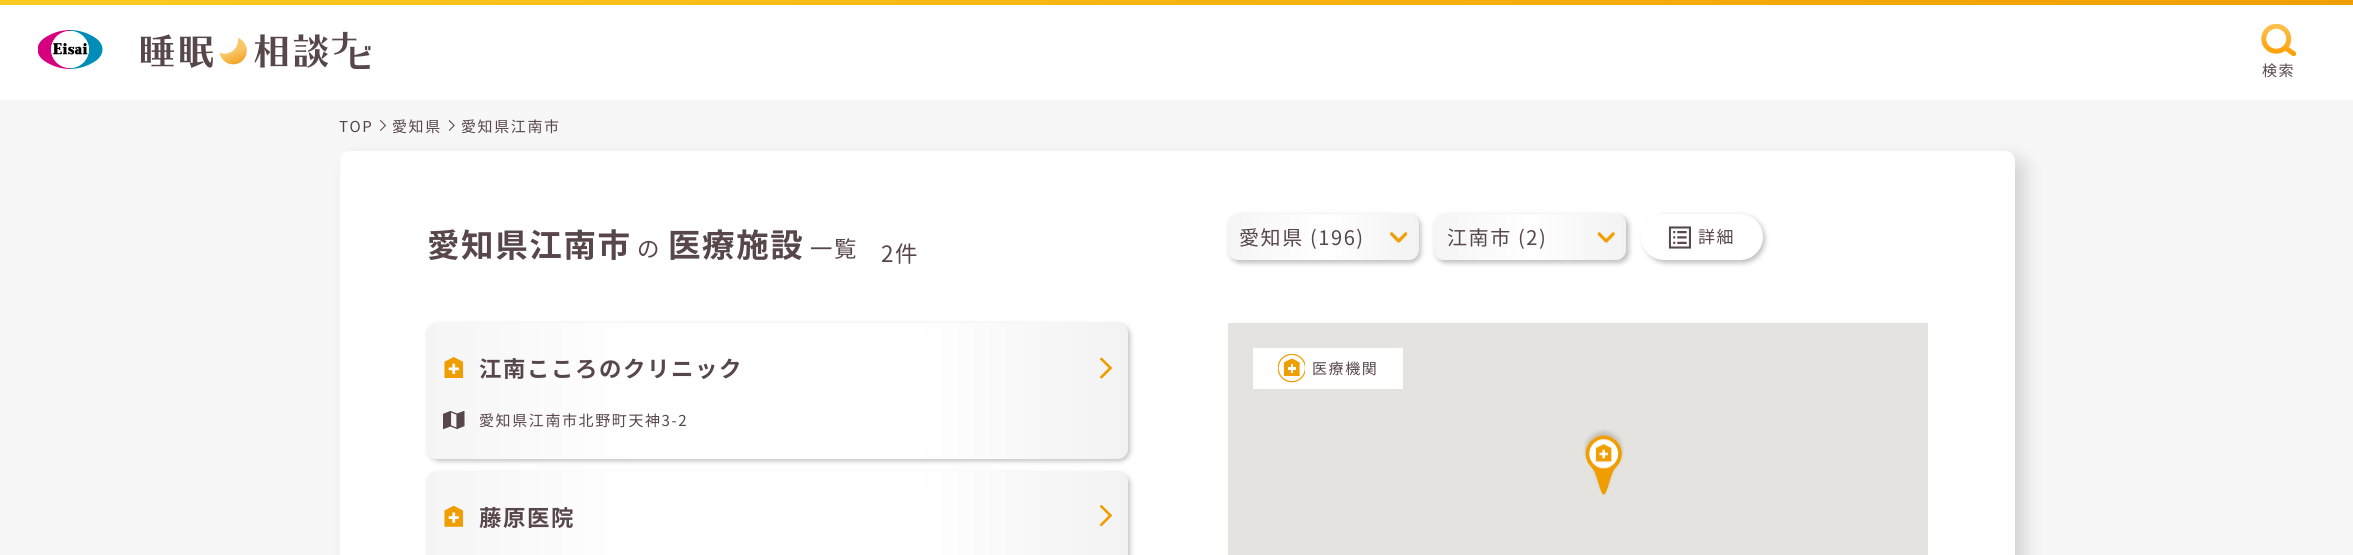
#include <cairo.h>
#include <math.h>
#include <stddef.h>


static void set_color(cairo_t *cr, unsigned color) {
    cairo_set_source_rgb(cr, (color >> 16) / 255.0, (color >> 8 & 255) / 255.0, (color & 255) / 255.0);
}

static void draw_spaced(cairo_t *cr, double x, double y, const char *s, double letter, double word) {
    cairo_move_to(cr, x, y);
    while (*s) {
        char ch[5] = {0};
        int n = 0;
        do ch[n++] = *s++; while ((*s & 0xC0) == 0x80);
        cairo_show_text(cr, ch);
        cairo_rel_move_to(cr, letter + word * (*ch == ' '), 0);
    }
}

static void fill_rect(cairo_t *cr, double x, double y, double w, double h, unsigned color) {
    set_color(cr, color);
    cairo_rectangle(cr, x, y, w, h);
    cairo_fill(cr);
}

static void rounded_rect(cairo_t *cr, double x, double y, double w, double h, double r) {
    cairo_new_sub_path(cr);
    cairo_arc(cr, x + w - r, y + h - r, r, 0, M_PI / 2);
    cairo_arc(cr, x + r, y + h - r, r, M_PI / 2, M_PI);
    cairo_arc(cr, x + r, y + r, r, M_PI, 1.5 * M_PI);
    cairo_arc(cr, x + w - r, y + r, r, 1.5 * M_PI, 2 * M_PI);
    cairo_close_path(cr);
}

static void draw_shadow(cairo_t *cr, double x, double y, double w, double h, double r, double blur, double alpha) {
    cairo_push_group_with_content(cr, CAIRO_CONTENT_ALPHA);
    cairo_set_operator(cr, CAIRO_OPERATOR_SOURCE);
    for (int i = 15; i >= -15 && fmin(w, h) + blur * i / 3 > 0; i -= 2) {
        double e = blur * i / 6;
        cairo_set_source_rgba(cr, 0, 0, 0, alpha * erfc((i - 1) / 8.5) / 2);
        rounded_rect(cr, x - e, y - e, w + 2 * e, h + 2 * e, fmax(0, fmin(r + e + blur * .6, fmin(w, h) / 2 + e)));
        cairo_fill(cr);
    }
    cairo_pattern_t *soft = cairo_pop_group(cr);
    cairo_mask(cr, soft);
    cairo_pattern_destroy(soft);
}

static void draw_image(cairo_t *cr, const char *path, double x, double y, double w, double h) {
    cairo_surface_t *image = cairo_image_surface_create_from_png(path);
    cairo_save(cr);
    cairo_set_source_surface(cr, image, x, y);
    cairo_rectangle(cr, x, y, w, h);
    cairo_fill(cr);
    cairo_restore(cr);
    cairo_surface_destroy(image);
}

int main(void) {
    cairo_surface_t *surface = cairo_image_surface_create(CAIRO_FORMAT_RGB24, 2353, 555);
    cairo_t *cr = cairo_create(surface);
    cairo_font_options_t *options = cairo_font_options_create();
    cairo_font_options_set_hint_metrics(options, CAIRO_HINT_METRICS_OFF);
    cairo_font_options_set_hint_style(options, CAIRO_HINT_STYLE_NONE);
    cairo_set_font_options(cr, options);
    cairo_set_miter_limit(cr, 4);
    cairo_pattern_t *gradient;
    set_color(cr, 0xF7F7F7);
    cairo_paint(cr);
    fill_rect(cr, 0, 5, 2353, 95, 0xFFFFFF);
    gradient = cairo_pattern_create_linear(0, 2.5, 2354, 2.5);
    cairo_pattern_add_color_stop_rgba(gradient, 0, 0.992, 0.796, 0.141, 1);
    cairo_pattern_add_color_stop_rgba(gradient, 1, 0.941, 0.616, 0, 1);
    cairo_set_source(cr, gradient);
    cairo_pattern_destroy(gradient);
    cairo_rectangle(cr, 0, 0, 2353, 5);
    cairo_fill(cr);
    draw_image(cr, "assets/img1.png", 38, 30, 65, 39);
    draw_image(cr, "assets/img2.png", 140, 31, 231, 38);
    draw_image(cr, "assets/img3.png", 2261, 24, 35, 32);
    cairo_select_font_face(cr, "Noto Sans JP", CAIRO_FONT_SLANT_NORMAL, CAIRO_FONT_WEIGHT_NORMAL);
    cairo_set_font_size(cr, 15);
    set_color(cr, 0x58474A);
    draw_spaced(cr, 2262, 76, "検索", 1.6, 0);
    set_color(cr, 0x000000);
    draw_shadow(cr, 350, 159, 1675, 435, 10, 9.5, 0.15);
    set_color(cr, 0x58474A);
    draw_spaced(cr, 339, 132, "TOP", 1.6, 0);
    draw_image(cr, "assets/img4.png", 380, 120, 6, 11);
    draw_spaced(cr, 392, 132, "愛知県", 1.6, 0);
    draw_image(cr, "assets/img5.png", 448, 120, 7, 11);
    draw_spaced(cr, 461, 132, "愛知県江南市", 1.6, 0);
    set_color(cr, 0xFFFFFF);
    rounded_rect(cr, 340, 151, 1675, 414, 10);
    cairo_fill(cr);
    cairo_select_font_face(cr, "Noto Sans JP", CAIRO_FONT_SLANT_NORMAL, CAIRO_FONT_WEIGHT_BOLD);
    cairo_set_font_size(cr, 32.5);
    set_color(cr, 0x58474A);
    draw_spaced(cr, 427, 257, "愛知県江南市", 1.6, 0);
    cairo_select_font_face(cr, "Noto Sans JP", CAIRO_FONT_SLANT_NORMAL, CAIRO_FONT_WEIGHT_NORMAL);
    cairo_set_font_size(cr, 22.4);
    draw_spaced(cr, 637, 257, "の", 1.6, 0);
    cairo_select_font_face(cr, "Noto Sans JP", CAIRO_FONT_SLANT_NORMAL, CAIRO_FONT_WEIGHT_BOLD);
    cairo_set_font_size(cr, 32.5);
    draw_spaced(cr, 668, 257, "医療施設", 1.6, 0);
    cairo_select_font_face(cr, "Noto Sans JP", CAIRO_FONT_SLANT_NORMAL, CAIRO_FONT_WEIGHT_NORMAL);
    cairo_set_font_size(cr, 22.4);
    draw_spaced(cr, 810, 257, "一覧", 1.6, 0);
    draw_spaced(cr, 881, 262, "2件", 1.6, 0);
    set_color(cr, 0x464646);
    draw_shadow(cr, 1230, 216, 191, 47, 10, 2.5, 0.35);
    gradient = cairo_pattern_create_linear(1228, 237, 1419, 237);
    cairo_pattern_add_color_stop_rgba(gradient, 0, 0.961, 0.961, 0.961, 1);
    cairo_pattern_add_color_stop_rgba(gradient, 0.5, 1, 1, 1, 1);
    cairo_pattern_add_color_stop_rgba(gradient, 1, 0.949, 0.949, 0.949, 1);
    cairo_set_source(cr, gradient);
    cairo_pattern_destroy(gradient);
    rounded_rect(cr, 1228, 214, 191, 46, 10);
    cairo_fill(cr);
    cairo_set_font_size(cr, 20);
    set_color(cr, 0x58474A);
    draw_spaced(cr, 1239, 245, "愛知県 (196)", 1.6, 0);
    draw_image(cr, "assets/img6.png", 1390, 232, 18, 12);
    set_color(cr, 0x464646);
    draw_shadow(cr, 1436, 216, 193, 47, 10, 2.5, 0.35);
    gradient = cairo_pattern_create_linear(1434, 237, 1626, 237);
    cairo_pattern_add_color_stop_rgba(gradient, 0, 0.961, 0.961, 0.961, 1);
    cairo_pattern_add_color_stop_rgba(gradient, 0.5, 1, 1, 1, 1);
    cairo_pattern_add_color_stop_rgba(gradient, 1, 0.949, 0.949, 0.949, 1);
    cairo_set_source(cr, gradient);
    cairo_pattern_destroy(gradient);
    rounded_rect(cr, 1434, 214, 192, 46, 10);
    cairo_fill(cr);
    set_color(cr, 0x58474A);
    draw_spaced(cr, 1447, 245, "江南市 (2)", 1.6, 0);
    draw_image(cr, "assets/img7.png", 1597, 232, 18, 12);
    set_color(cr, 0x464646);
    draw_shadow(cr, 1644, 216, 121, 47, 23.5, 2.5, 0.35);
    set_color(cr, 0xFFFFFF);
    rounded_rect(cr, 1641, 214, 122, 46, 23);
    cairo_fill(cr);
    draw_image(cr, "assets/img8.png", 1668, 226, 23, 23);
    cairo_set_font_size(cr, 17);
    set_color(cr, 0x58474A);
    draw_spaced(cr, 1698, 243, "詳細", 1.6, 0);
    set_color(cr, 0x464646);
    draw_shadow(cr, 429, 325, 701, 136, 10, 2.5, 0.35);
    gradient = cairo_pattern_create_linear(426, 391, 1128, 391);
    cairo_pattern_add_color_stop_rgba(gradient, 0, 0.961, 0.961, 0.961, 1);
    cairo_pattern_add_color_stop_rgba(gradient, 0.3, 1, 1, 1, 1);
    cairo_pattern_add_color_stop_rgba(gradient, 0.7, 1, 1, 1, 1);
    cairo_pattern_add_color_stop_rgba(gradient, 1, 0.949, 0.949, 0.949, 1);
    cairo_set_source(cr, gradient);
    cairo_pattern_destroy(gradient);
    rounded_rect(cr, 426, 323, 702, 136, 10);
    cairo_fill(cr);
    draw_image(cr, "assets/img9.png", 444, 357, 20, 21);
    cairo_select_font_face(cr, "Noto Sans JP", CAIRO_FONT_SLANT_NORMAL, CAIRO_FONT_WEIGHT_BOLD);
    cairo_set_font_size(cr, 22.4);
    set_color(cr, 0x58474A);
    draw_spaced(cr, 479, 377, "江南こころのクリニック", 1.6, 0);
    draw_image(cr, "assets/img10.png", 1100, 357, 13, 22);
    draw_image(cr, "assets/img11.png", 443, 411, 22, 19);
    cairo_select_font_face(cr, "Noto Sans JP", CAIRO_FONT_SLANT_NORMAL, CAIRO_FONT_WEIGHT_NORMAL);
    cairo_set_font_size(cr, 15);
    draw_spaced(cr, 479, 426, "愛知県江南市北野町天神3-2", 1.6, 0);
    set_color(cr, 0x464646);
    draw_shadow(cr, 429, 474, 701, 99, 10, 2.5, 0.35);
    gradient = cairo_pattern_create_linear(426, 539, 1128, 539);
    cairo_pattern_add_color_stop_rgba(gradient, 0, 0.961, 0.961, 0.961, 1);
    cairo_pattern_add_color_stop_rgba(gradient, 0.3, 1, 1, 1, 1);
    cairo_pattern_add_color_stop_rgba(gradient, 0.7, 1, 1, 1, 1);
    cairo_pattern_add_color_stop_rgba(gradient, 1, 0.949, 0.949, 0.949, 1);
    cairo_set_source(cr, gradient);
    cairo_pattern_destroy(gradient);
    rounded_rect(cr, 426, 471, 702, 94, 10);
    cairo_fill(cr);
    draw_image(cr, "assets/img12.png", 444, 505, 20, 22);
    cairo_select_font_face(cr, "Noto Sans JP", CAIRO_FONT_SLANT_NORMAL, CAIRO_FONT_WEIGHT_BOLD);
    cairo_set_font_size(cr, 22.4);
    set_color(cr, 0x58474A);
    draw_spaced(cr, 479, 526, "藤原医院", 1.6, 0);
    draw_image(cr, "assets/img13.png", 1100, 505, 13, 21);
    fill_rect(cr, 1228, 323, 700, 232, 0xE5E3DF);
    draw_image(cr, "assets/img14.png", 1583, 429, 41, 67);
    fill_rect(cr, 1253, 348, 150, 41, 0xFFFFFF);
    draw_image(cr, "assets/img15.png", 1278, 354, 27, 29);
    cairo_select_font_face(cr, "Noto Sans JP", CAIRO_FONT_SLANT_NORMAL, CAIRO_FONT_WEIGHT_NORMAL);
    cairo_set_font_size(cr, 15);
    set_color(cr, 0x58474A);
    draw_spaced(cr, 1312, 374, "医療機関", 1.6, 0);
    cairo_surface_write_to_png(surface, "output.png");
    cairo_font_options_destroy(options);
    cairo_destroy(cr);
    cairo_surface_destroy(surface);
    return 0;
}
